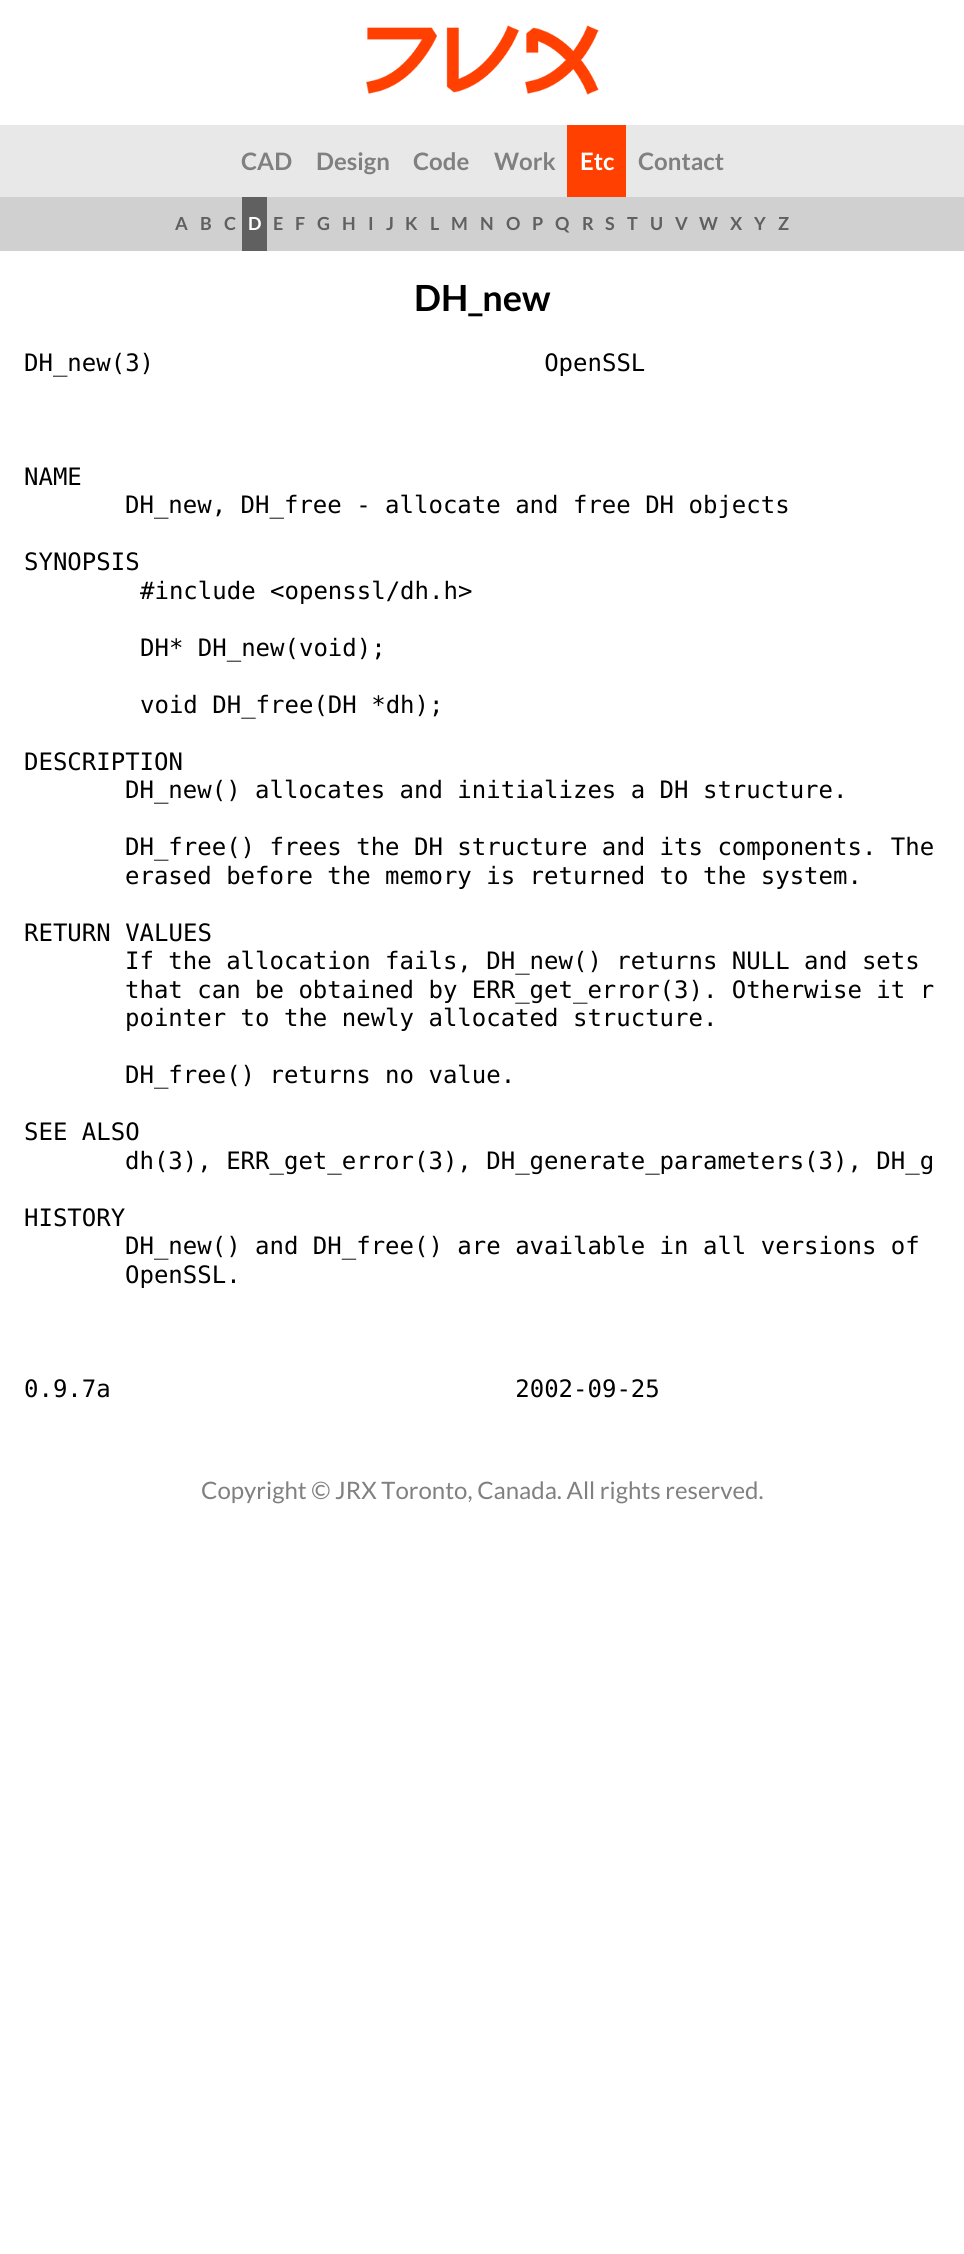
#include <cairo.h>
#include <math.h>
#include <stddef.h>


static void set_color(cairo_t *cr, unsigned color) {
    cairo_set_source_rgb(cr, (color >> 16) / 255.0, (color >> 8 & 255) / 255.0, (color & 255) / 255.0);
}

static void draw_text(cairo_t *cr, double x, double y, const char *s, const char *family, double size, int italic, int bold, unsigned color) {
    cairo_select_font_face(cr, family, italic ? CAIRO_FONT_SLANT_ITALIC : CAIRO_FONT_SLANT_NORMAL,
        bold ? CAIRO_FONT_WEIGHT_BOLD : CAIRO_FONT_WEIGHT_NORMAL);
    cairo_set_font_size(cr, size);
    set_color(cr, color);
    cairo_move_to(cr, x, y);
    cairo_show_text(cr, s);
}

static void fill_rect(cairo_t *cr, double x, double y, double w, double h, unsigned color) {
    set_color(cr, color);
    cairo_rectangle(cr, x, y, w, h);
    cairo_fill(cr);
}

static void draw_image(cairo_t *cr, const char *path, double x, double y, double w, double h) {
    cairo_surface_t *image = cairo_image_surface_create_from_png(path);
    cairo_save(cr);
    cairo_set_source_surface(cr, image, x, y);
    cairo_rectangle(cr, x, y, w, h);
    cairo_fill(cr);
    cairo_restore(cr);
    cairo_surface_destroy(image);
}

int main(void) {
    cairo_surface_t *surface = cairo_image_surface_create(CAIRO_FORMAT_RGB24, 964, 2254);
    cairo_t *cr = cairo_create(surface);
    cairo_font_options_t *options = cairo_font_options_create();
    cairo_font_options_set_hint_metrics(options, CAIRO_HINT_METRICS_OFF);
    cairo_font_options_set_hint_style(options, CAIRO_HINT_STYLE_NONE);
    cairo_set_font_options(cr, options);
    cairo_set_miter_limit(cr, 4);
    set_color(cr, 0xFFFFFF);
    cairo_paint(cr);
    draw_image(cr, "assets/img1.png", 366, 25, 233, 70);
    fill_rect(cr, 0, 125, 964, 72, 0xE8E8E8);
    draw_text(cr, 241, 170, "CAD", "Lato", 24, 0, 1, 0x808080);
    draw_text(cr, 316, 170, "Design", "Lato", 24, 0, 1, 0x808080);
    draw_text(cr, 413, 170, "Code", "Lato", 24, 0, 1, 0x808080);
    draw_text(cr, 494, 170, "Work", "Lato", 24, 0, 1, 0x808080);
    fill_rect(cr, 567, 125, 59, 72, 0xFF4000);
    draw_text(cr, 580, 170, "Etc", "Lato", 24, 0, 1, 0xFFFFFF);
    draw_text(cr, 638, 170, "Contact", "Lato", 24, 0, 1, 0x808080);
    fill_rect(cr, 0, 197, 964, 54, 0xD0D0D0);
    draw_text(cr, 175, 230, "A", "Lato", 18, 0, 1, 0x606060);
    draw_text(cr, 200, 230, "B", "Lato", 18, 0, 1, 0x606060);
    draw_text(cr, 224, 230, "C", "Lato", 18, 0, 1, 0x606060);
    fill_rect(cr, 242, 197, 25, 54, 0x606060);
    draw_text(cr, 248, 230, "D", "Lato", 18, 0, 1, 0xFFFFFF);
    draw_text(cr, 273, 230, "E", "Lato", 18, 0, 1, 0x606060);
    draw_text(cr, 295, 230, "F", "Lato", 18, 0, 1, 0x606060);
    draw_text(cr, 317, 230, "G", "Lato", 18, 0, 1, 0x606060);
    draw_text(cr, 342, 230, "H", "Lato", 18, 0, 1, 0x606060);
    draw_text(cr, 368, 230, "I", "Lato", 18, 0, 1, 0x606060);
    draw_text(cr, 386, 230, "J", "Lato", 18, 0, 1, 0x606060);
    draw_text(cr, 405, 230, "K", "Lato", 18, 0, 1, 0x606060);
    draw_text(cr, 430, 230, "L", "Lato", 18, 0, 1, 0x606060);
    draw_text(cr, 451, 230, "M", "Lato", 18, 0, 1, 0x606060);
    draw_text(cr, 480, 230, "N", "Lato", 18, 0, 1, 0x606060);
    draw_text(cr, 506, 230, "O", "Lato", 18, 0, 1, 0x606060);
    draw_text(cr, 532, 230, "P", "Lato", 18, 0, 1, 0x606060);
    draw_text(cr, 555, 230, "Q", "Lato", 18, 0, 1, 0x606060);
    draw_text(cr, 582, 230, "R", "Lato", 18, 0, 1, 0x606060);
    draw_text(cr, 605, 230, "S", "Lato", 18, 0, 1, 0x606060);
    draw_text(cr, 627, 230, "T", "Lato", 18, 0, 1, 0x606060);
    draw_text(cr, 650, 230, "U", "Lato", 18, 0, 1, 0x606060);
    draw_text(cr, 675, 230, "V", "Lato", 18, 0, 1, 0x606060);
    draw_text(cr, 699, 230, "W", "Lato", 18, 0, 1, 0x606060);
    draw_text(cr, 730, 230, "X", "Lato", 18, 0, 1, 0x606060);
    draw_text(cr, 754, 230, "Y", "Lato", 18, 0, 1, 0x606060);
    draw_text(cr, 778, 230, "Z", "Lato", 18, 0, 1, 0x606060);
    draw_text(cr, 414, 311, "DH_new", "Lato", 36, 0, 1, 0x000000);
    draw_text(cr, 24, 371, "DH_new(3)                           OpenSSL", "DejaVu Sans Mono", 24, 0, 0, 0x000000);
    draw_text(cr, 24, 485, "NAME", "DejaVu Sans Mono", 24, 0, 0, 0x000000);
    draw_text(cr, 125, 513, "DH_new, DH_free - allocate and free DH objects", "DejaVu Sans Mono", 24, 0, 0, 0x000000);
    draw_text(cr, 24, 570, "SYNOPSIS", "DejaVu Sans Mono", 24, 0, 0, 0x000000);
    draw_text(cr, 140, 599, "#include <openssl/dh.h>", "DejaVu Sans Mono", 24, 0, 0, 0x000000);
    draw_text(cr, 140, 656, "DH* DH_new(void);", "DejaVu Sans Mono", 24, 0, 0, 0x000000);
    draw_text(cr, 140, 713, "void DH_free(DH *dh);", "DejaVu Sans Mono", 24, 0, 0, 0x000000);
    draw_text(cr, 24, 770, "DESCRIPTION", "DejaVu Sans Mono", 24, 0, 0, 0x000000);
    draw_text(cr, 125, 798, "DH_new() allocates and initializes a DH structure.", "DejaVu Sans Mono", 24, 0, 0, 0x000000);
    draw_text(cr, 125, 855, "DH_free() frees the DH structure and its components. The", "DejaVu Sans Mono", 24, 0, 0, 0x000000);
    draw_text(cr, 125, 884, "erased before the memory is returned to the system.", "DejaVu Sans Mono", 24, 0, 0, 0x000000);
    draw_text(cr, 24, 941, "RETURN VALUES", "DejaVu Sans Mono", 24, 0, 0, 0x000000);
    draw_text(cr, 125, 969, "If the allocation fails, DH_new() returns NULL and sets", "DejaVu Sans Mono", 24, 0, 0, 0x000000);
    draw_text(cr, 125, 998, "that can be obtained by ERR_get_error(3). Otherwise it r", "DejaVu Sans Mono", 24, 0, 0, 0x000000);
    draw_text(cr, 125, 1026, "pointer to the newly allocated structure.", "DejaVu Sans Mono", 24, 0, 0, 0x000000);
    draw_text(cr, 125, 1083, "DH_free() returns no value.", "DejaVu Sans Mono", 24, 0, 0, 0x000000);
    draw_text(cr, 24, 1140, "SEE ALSO", "DejaVu Sans Mono", 24, 0, 0, 0x000000);
    draw_text(cr, 125, 1169, "dh(3), ERR_get_error(3), DH_generate_parameters(3), DH_g", "DejaVu Sans Mono", 24, 0, 0, 0x000000);
    draw_text(cr, 24, 1226, "HISTORY", "DejaVu Sans Mono", 24, 0, 0, 0x000000);
    draw_text(cr, 125, 1254, "DH_new() and DH_free() are available in all versions of", "DejaVu Sans Mono", 24, 0, 0, 0x000000);
    draw_text(cr, 125, 1283, "OpenSSL.", "DejaVu Sans Mono", 24, 0, 0, 0x000000);
    draw_text(cr, 24, 1397, "0.9.7a                            2002-09-25", "DejaVu Sans Mono", 24, 0, 0, 0x000000);
    draw_text(cr, 201, 1499, "Copyright © JRX Toronto, Canada. All rights reserved.", "Lato", 24, 0, 0, 0x808080);
    cairo_surface_write_to_png(surface, "output.png");
    cairo_font_options_destroy(options);
    cairo_destroy(cr);
    cairo_surface_destroy(surface);
    return 0;
}
